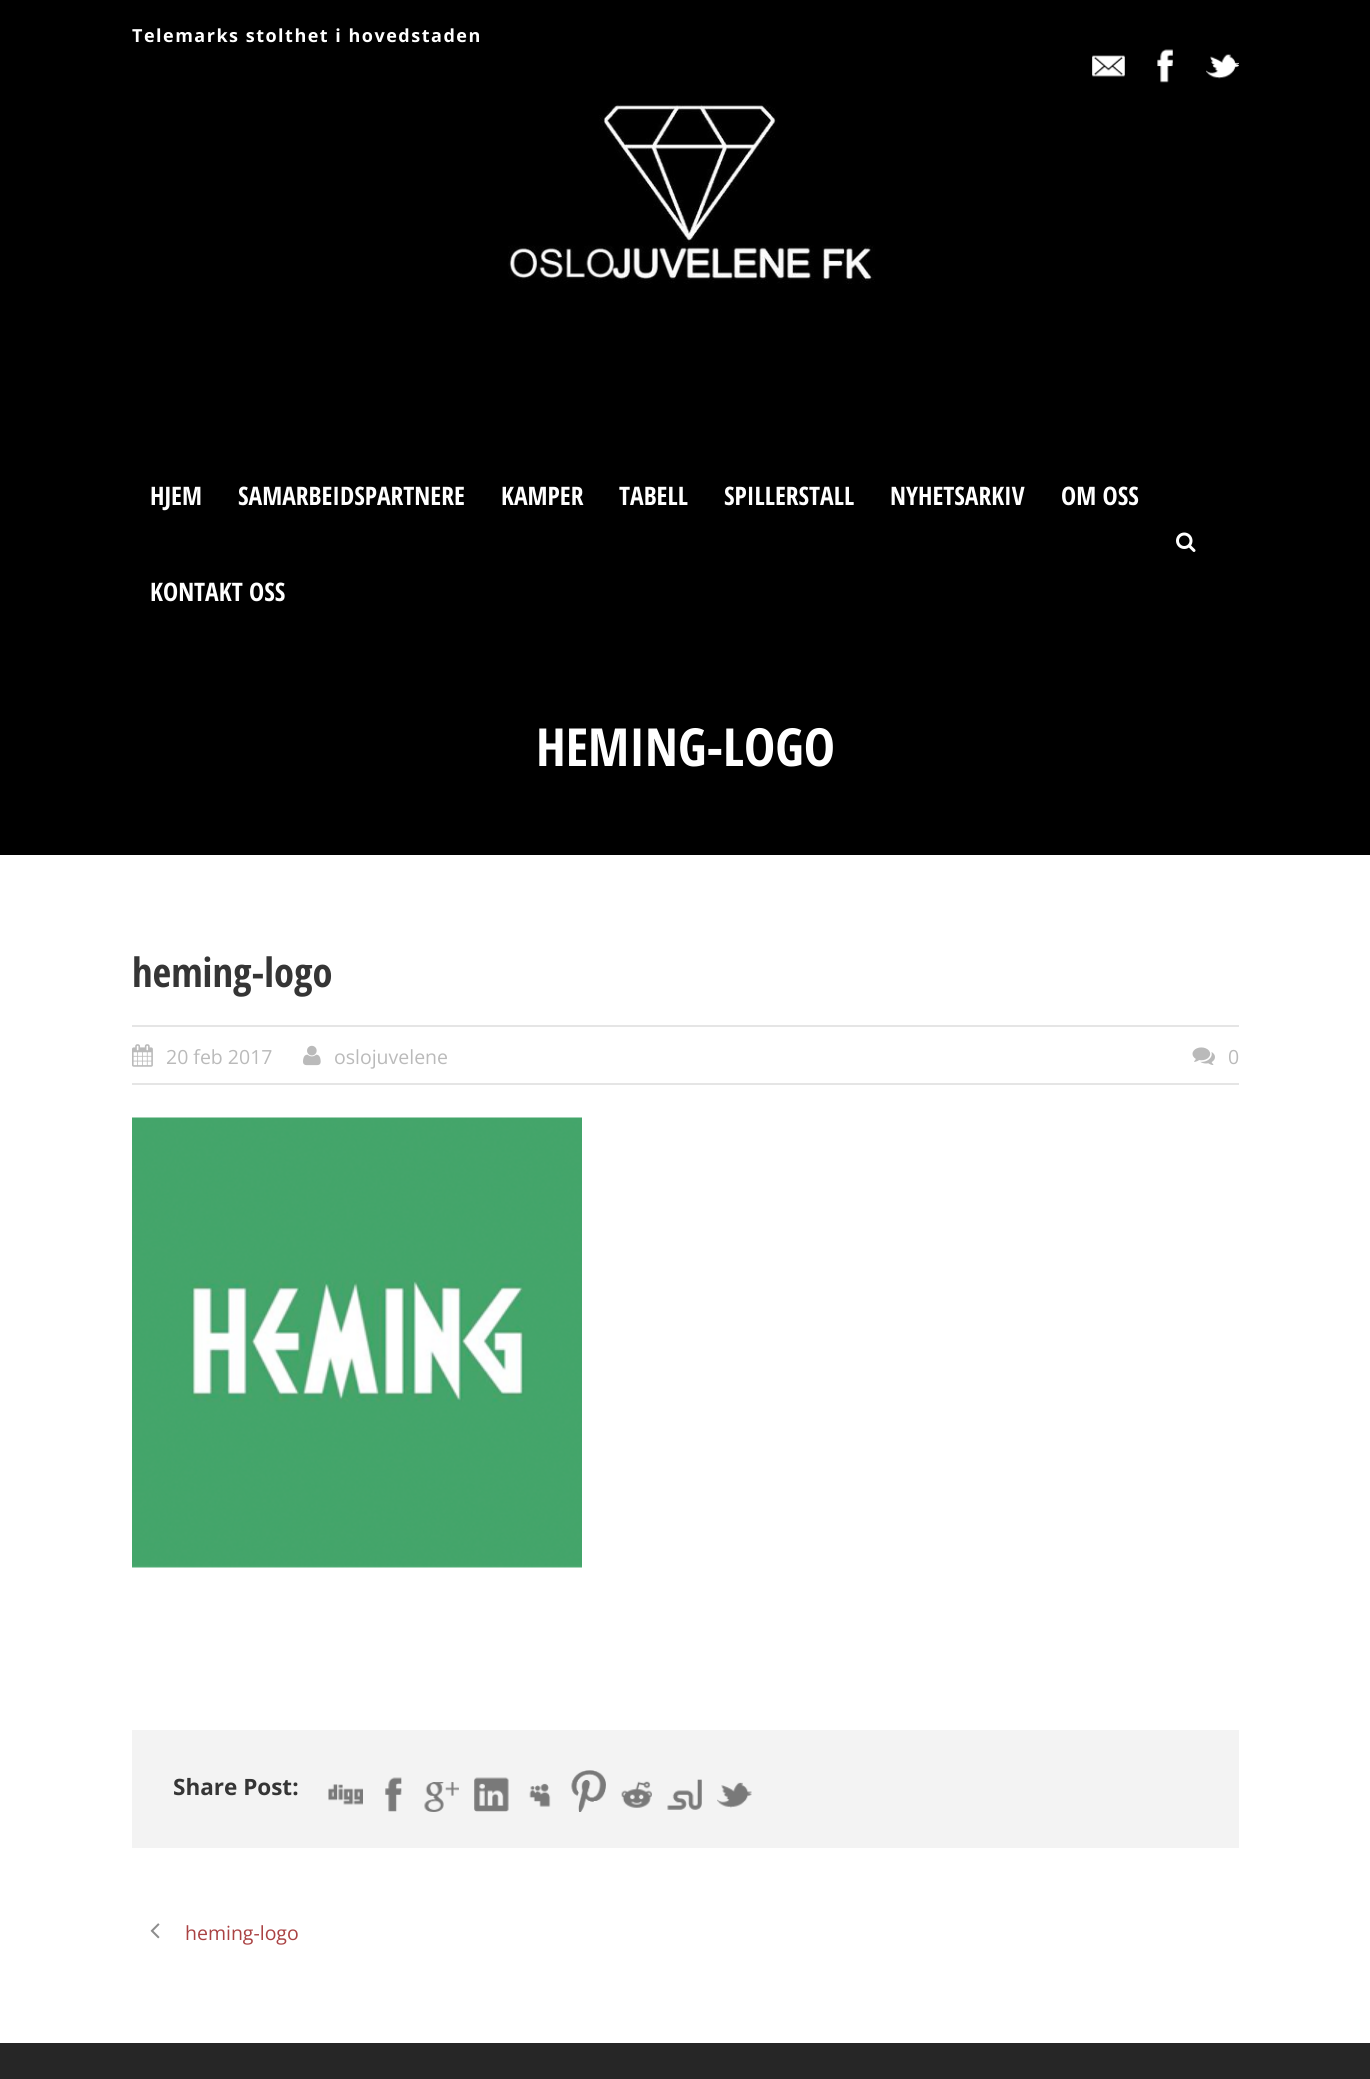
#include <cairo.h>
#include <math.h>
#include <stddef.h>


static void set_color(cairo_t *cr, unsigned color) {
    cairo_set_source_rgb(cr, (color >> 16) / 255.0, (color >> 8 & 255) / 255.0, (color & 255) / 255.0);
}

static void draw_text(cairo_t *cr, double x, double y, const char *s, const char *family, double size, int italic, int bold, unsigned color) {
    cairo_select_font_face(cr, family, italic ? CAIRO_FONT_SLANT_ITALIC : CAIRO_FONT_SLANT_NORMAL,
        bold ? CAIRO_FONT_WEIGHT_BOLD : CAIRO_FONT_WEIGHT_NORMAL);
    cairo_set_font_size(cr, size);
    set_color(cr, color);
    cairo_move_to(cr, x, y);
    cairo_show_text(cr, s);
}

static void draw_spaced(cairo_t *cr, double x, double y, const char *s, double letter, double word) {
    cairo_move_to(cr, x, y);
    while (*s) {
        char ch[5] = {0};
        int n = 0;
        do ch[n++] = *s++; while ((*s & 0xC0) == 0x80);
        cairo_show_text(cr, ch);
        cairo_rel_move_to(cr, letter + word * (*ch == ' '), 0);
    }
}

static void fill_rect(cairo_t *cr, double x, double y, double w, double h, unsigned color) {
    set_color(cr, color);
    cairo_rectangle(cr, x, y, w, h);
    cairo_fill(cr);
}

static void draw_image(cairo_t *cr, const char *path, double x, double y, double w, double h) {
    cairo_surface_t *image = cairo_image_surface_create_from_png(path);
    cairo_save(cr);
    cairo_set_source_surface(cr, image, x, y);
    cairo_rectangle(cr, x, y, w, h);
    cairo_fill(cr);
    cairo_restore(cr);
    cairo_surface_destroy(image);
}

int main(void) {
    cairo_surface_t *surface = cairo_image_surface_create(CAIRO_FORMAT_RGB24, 1370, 2079);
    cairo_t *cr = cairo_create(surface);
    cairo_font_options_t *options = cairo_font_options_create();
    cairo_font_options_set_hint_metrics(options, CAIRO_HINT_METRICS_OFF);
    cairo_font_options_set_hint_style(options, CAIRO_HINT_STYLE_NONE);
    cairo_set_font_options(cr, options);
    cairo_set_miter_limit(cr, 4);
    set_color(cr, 0xFFFFFF);
    cairo_paint(cr);
    fill_rect(cr, 0, 0, 1370, 855, 0x000000);
    cairo_select_font_face(cr, "Open Sans", CAIRO_FONT_SLANT_NORMAL, CAIRO_FONT_WEIGHT_BOLD);
    cairo_set_font_size(cr, 18);
    set_color(cr, 0xFFFFFF);
    draw_spaced(cr, 132, 42, "Telemarks stolthet i hovedstaden", 1.5, 0);
    draw_image(cr, "assets/img1.png", 1092, 55, 33, 22);
    draw_image(cr, "assets/img2.png", 1157, 49, 16, 34);
    draw_image(cr, "assets/img3.png", 1206, 54, 33, 25);
    draw_image(cr, "assets/img4.png", 508, 100, 367, 184);
    draw_text(cr, 150, 505, "HJEM", "Open Sans Condensed", 25.5, 0, 1, 0xFFFFFF);
    draw_text(cr, 238, 505, "SAMARBEIDSPARTNERE", "Open Sans Condensed", 25.5, 0, 1, 0xFFFFFF);
    draw_text(cr, 501, 505, "KAMPER", "Open Sans Condensed", 25.5, 0, 1, 0xFFFFFF);
    draw_text(cr, 619, 505, "TABELL", "Open Sans Condensed", 25.5, 0, 1, 0xFFFFFF);
    draw_text(cr, 724, 505, "SPILLERSTALL", "Open Sans Condensed", 25.5, 0, 1, 0xFFFFFF);
    draw_text(cr, 890, 505, "NYHETSARKIV", "Open Sans Condensed", 25.5, 0, 1, 0xFFFFFF);
    draw_text(cr, 1061, 505, "OM OSS", "Open Sans Condensed", 25.5, 0, 1, 0xFFFFFF);
    draw_text(cr, 150, 601, "KONTAKT OSS", "Open Sans Condensed", 25.5, 0, 1, 0xFFFFFF);
    draw_image(cr, "assets/img5.png", 1176, 532, 20, 20);
    draw_text(cr, 536, 766, "HEMING-LOGO", "Open Sans Condensed", 52.5, 0, 1, 0xFFFFFF);
    draw_text(cr, 132, 987, "heming-logo", "Open Sans Condensed", 40.5, 0, 1, 0x353535);
    fill_rect(cr, 132, 1025, 1107, 2, 0xE5E5E5);
    fill_rect(cr, 132, 1083, 1107, 2, 0xE5E5E5);
    draw_image(cr, "assets/img6.png", 132, 1044, 21, 23);
    draw_text(cr, 166, 1064, "20 feb 2017", "Open Sans", 19.5, 0, 0, 0xBABABA);
    draw_image(cr, "assets/img7.png", 303, 1045, 18, 21);
    draw_text(cr, 334, 1064, "oslojuvelene", "Open Sans", 19.5, 0, 0, 0xBABABA);
    draw_image(cr, "assets/img8.png", 1192, 1047, 23, 18);
    draw_text(cr, 1228, 1064, "0", "Open Sans", 19.5, 0, 0, 0xBABABA);
    draw_image(cr, "assets/img9.png", 132, 1117, 450, 451);
    fill_rect(cr, 132, 1730, 1107, 118, 0xF3F3F3);
    draw_text(cr, 173, 1795, "Share Post:", "Open Sans", 22.5, 0, 1, 0x353535);
    draw_image(cr, "assets/img10.png", 328, 1784, 35, 21);
    draw_image(cr, "assets/img11.png", 385, 1777, 17, 35);
    draw_image(cr, "assets/img12.png", 424, 1782, 35, 30);
    draw_image(cr, "assets/img13.png", 474, 1777, 35, 35);
    draw_image(cr, "assets/img14.png", 529, 1783, 22, 24);
    draw_image(cr, "assets/img15.png", 571, 1770, 35, 42);
    draw_image(cr, "assets/img16.png", 621, 1781, 31, 27);
    draw_image(cr, "assets/img17.png", 667, 1779, 35, 31);
    draw_image(cr, "assets/img18.png", 717, 1782, 35, 26);
    draw_image(cr, "assets/img19.png", 150, 1923, 10, 16);
    draw_text(cr, 185, 1940, "heming-logo", "Open Sans", 19.5, 0, 0, 0xAA4243);
    fill_rect(cr, 0, 2043, 1370, 36, 0x262626);
    cairo_surface_write_to_png(surface, "output.png");
    cairo_font_options_destroy(options);
    cairo_destroy(cr);
    cairo_surface_destroy(surface);
    return 0;
}
